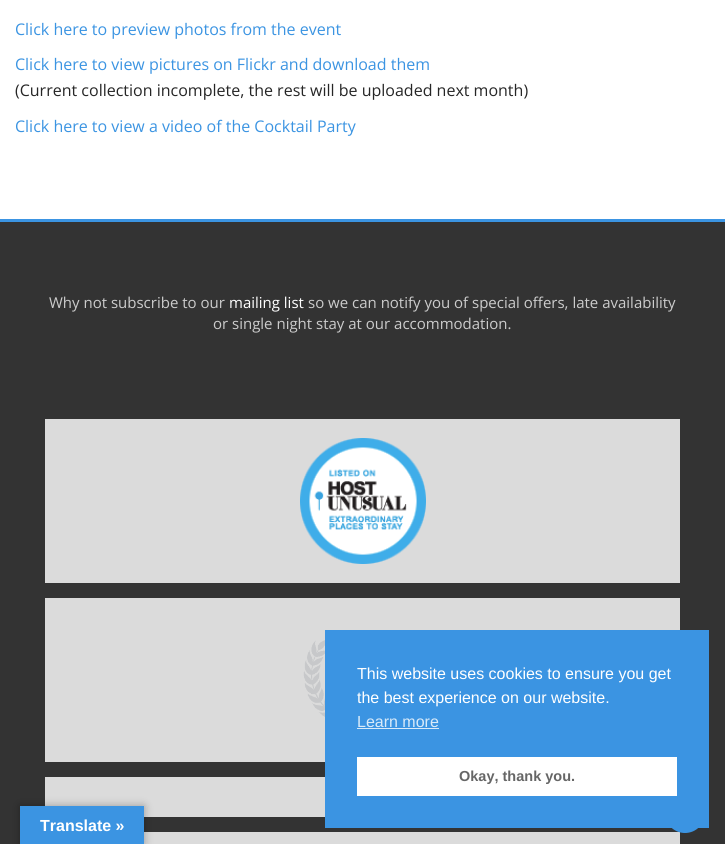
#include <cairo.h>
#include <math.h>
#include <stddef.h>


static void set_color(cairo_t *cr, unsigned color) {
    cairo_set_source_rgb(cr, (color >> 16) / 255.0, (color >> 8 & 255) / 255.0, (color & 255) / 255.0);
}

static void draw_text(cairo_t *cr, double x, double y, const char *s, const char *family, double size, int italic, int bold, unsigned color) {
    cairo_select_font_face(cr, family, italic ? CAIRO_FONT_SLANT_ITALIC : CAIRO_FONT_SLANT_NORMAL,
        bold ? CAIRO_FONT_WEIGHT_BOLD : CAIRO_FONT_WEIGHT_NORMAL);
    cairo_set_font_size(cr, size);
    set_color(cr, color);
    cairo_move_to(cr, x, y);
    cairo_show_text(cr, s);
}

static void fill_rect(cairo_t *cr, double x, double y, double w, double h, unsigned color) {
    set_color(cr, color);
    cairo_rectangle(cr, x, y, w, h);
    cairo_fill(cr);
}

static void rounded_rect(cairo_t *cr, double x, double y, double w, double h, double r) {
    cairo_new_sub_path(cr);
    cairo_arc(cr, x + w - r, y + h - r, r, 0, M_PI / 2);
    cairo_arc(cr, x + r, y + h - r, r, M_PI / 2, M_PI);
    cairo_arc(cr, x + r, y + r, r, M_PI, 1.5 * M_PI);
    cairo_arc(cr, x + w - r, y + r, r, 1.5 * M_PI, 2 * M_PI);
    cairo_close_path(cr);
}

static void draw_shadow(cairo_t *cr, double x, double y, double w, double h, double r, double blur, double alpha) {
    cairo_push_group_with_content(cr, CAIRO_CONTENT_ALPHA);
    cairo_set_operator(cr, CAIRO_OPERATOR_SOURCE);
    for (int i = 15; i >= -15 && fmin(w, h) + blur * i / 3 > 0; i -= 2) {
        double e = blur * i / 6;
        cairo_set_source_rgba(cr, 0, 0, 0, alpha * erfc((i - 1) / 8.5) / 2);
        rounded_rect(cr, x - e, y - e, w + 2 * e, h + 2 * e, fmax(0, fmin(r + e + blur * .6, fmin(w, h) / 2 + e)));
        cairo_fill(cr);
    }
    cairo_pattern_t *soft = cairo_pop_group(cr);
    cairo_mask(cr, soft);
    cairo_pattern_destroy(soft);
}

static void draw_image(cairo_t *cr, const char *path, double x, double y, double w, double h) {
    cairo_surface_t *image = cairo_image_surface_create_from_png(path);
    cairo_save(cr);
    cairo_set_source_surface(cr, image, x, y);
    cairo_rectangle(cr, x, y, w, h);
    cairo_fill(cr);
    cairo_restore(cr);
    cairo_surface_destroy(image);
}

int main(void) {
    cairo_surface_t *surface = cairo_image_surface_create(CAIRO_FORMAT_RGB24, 725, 844);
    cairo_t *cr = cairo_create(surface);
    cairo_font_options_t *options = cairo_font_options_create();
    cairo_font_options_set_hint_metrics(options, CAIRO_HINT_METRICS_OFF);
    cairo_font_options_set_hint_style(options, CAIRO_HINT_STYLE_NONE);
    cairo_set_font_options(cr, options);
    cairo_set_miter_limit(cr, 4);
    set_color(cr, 0xFFFFFF);
    cairo_paint(cr);
    draw_text(cr, 15, 35, "Click here to preview photos from the event", "Open Sans", 16, 0, 0, 0x3B94E2);
    draw_text(cr, 15, 70, "Click here to view pictures on Flickr and download them", "Open Sans", 16, 0, 0, 0x3B94E2);
    draw_text(cr, 15, 96, "(Current collection incomplete, the rest will be uploaded next month)", "Open Sans", 16, 0, 0, 0x262626);
    draw_text(cr, 15, 132, "Click here to view a video of the Cocktail Party", "Open Sans", 16, 0, 0, 0x3B94E2);
    fill_rect(cr, 0, 219, 725, 3, 0x3B94E2);
    fill_rect(cr, 0, 222, 725, 622, 0x333333);
    draw_text(cr, 49, 308, "Why not subscribe to our", "Open Sans", 15, 0, 0, 0xCCCCCC);
    draw_text(cr, 229, 308, "mailing list", "Open Sans", 15, 0, 0, 0xFFFFFF);
    draw_text(cr, 308, 308, "so we can notify you of special offers, late availability", "Open Sans", 15, 0, 0, 0xCCCCCC);
    draw_text(cr, 213, 329, "or single night stay at our accommodation.", "Open Sans", 15, 0, 0, 0xCCCCCC);
    fill_rect(cr, 45, 419, 635, 164, 0xDBDBDB);
    draw_image(cr, "assets/img1.png", 300, 438, 126, 126);
    fill_rect(cr, 45, 598, 635, 164, 0xDBDBDB);
    draw_image(cr, "assets/img2.png", 303, 640, 22, 77);
    fill_rect(cr, 45, 777, 280, 40, 0xDBDBDB);
    fill_rect(cr, 144, 832, 536, 12, 0xDBDBDB);
    set_color(cr, 0x3B94E2);
    cairo_arc(cr, 685, 813, 20, 0, 2 * M_PI);
    cairo_fill(cr);
    fill_rect(cr, 325, 630, 384, 198, 0x3B94E2);
    draw_text(cr, 357, 679, "This website uses cookies to ensure you get", "Liberation Sans", 16, 0, 0, 0xFFFFFF);
    draw_text(cr, 357, 703, "the best experience on our website.", "Liberation Sans", 16, 0, 0, 0xFFFFFF);
    draw_text(cr, 357, 727, "Learn more", "Liberation Sans", 16, 0, 0, 0xD8EAF9);
    fill_rect(cr, 357, 728, 82, 1, 0xD8EAF9);
    fill_rect(cr, 357, 757, 320, 39, 0xFFFFFF);
    draw_text(cr, 459, 781, "Okay, thank you.", "Liberation Sans", 14.5, 0, 1, 0x666666);
    set_color(cr, 0x000000);
    draw_shadow(cr, 20, 806, 124, 38, 0, 4.5, 0.3);
    fill_rect(cr, 20, 806, 124, 38, 0x3B94E2);
    draw_text(cr, 40, 831, "Translate »", "Liberation Sans", 16, 0, 1, 0xFFFFFF);
    cairo_surface_write_to_png(surface, "output.png");
    cairo_font_options_destroy(options);
    cairo_destroy(cr);
    cairo_surface_destroy(surface);
    return 0;
}
